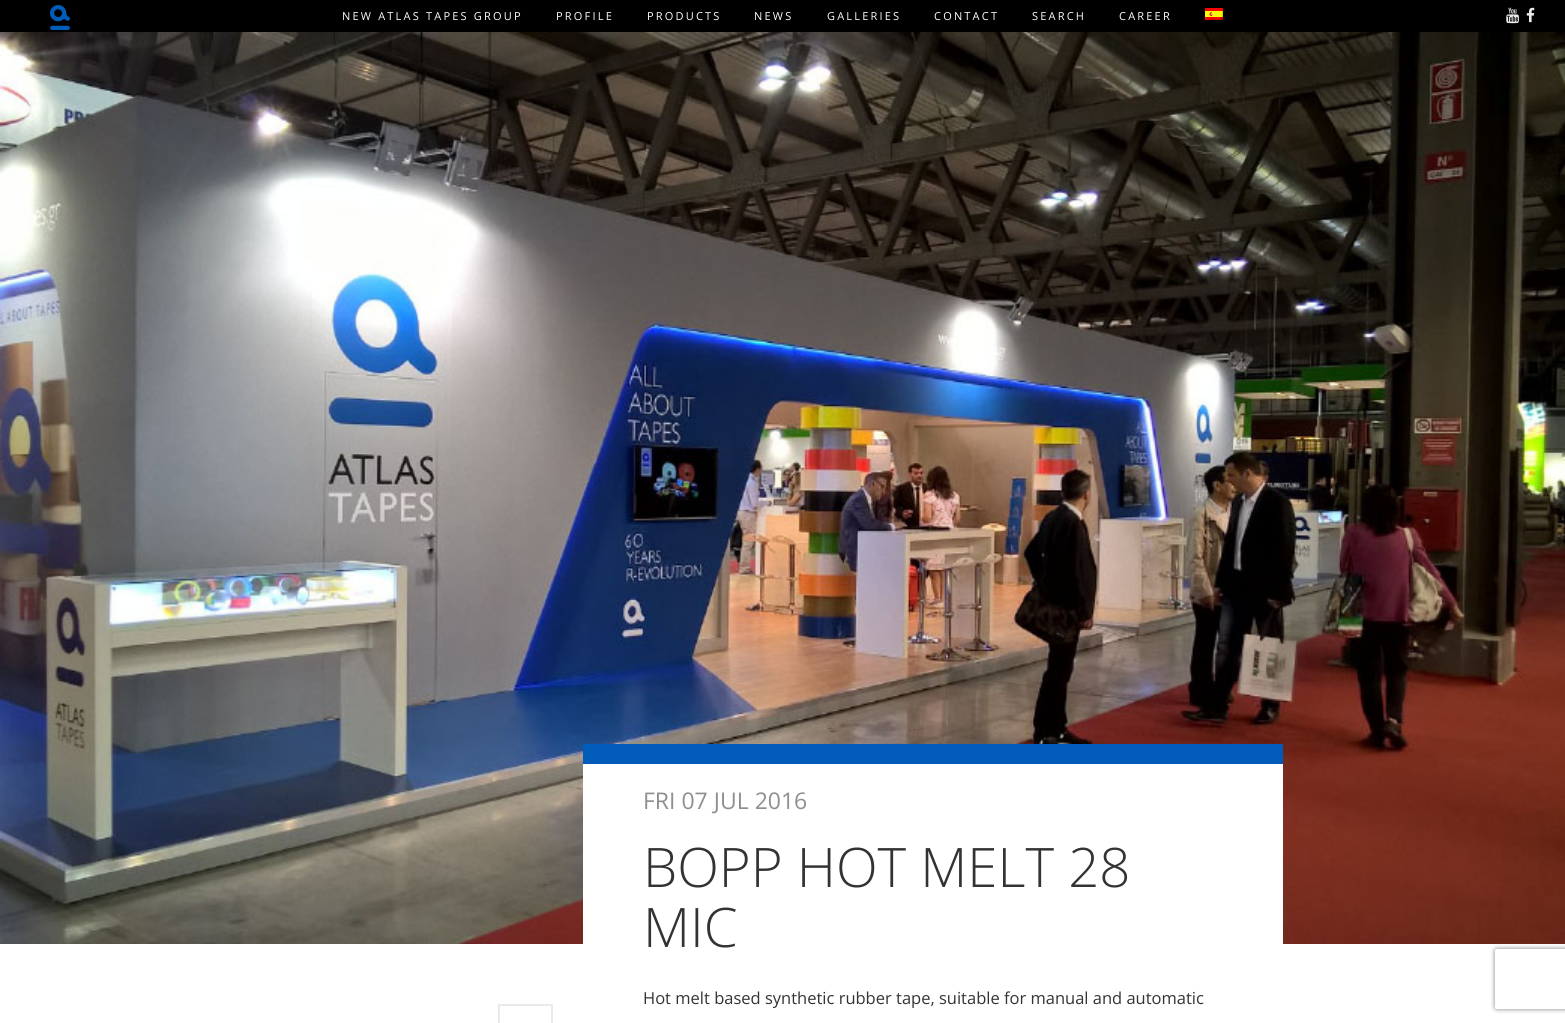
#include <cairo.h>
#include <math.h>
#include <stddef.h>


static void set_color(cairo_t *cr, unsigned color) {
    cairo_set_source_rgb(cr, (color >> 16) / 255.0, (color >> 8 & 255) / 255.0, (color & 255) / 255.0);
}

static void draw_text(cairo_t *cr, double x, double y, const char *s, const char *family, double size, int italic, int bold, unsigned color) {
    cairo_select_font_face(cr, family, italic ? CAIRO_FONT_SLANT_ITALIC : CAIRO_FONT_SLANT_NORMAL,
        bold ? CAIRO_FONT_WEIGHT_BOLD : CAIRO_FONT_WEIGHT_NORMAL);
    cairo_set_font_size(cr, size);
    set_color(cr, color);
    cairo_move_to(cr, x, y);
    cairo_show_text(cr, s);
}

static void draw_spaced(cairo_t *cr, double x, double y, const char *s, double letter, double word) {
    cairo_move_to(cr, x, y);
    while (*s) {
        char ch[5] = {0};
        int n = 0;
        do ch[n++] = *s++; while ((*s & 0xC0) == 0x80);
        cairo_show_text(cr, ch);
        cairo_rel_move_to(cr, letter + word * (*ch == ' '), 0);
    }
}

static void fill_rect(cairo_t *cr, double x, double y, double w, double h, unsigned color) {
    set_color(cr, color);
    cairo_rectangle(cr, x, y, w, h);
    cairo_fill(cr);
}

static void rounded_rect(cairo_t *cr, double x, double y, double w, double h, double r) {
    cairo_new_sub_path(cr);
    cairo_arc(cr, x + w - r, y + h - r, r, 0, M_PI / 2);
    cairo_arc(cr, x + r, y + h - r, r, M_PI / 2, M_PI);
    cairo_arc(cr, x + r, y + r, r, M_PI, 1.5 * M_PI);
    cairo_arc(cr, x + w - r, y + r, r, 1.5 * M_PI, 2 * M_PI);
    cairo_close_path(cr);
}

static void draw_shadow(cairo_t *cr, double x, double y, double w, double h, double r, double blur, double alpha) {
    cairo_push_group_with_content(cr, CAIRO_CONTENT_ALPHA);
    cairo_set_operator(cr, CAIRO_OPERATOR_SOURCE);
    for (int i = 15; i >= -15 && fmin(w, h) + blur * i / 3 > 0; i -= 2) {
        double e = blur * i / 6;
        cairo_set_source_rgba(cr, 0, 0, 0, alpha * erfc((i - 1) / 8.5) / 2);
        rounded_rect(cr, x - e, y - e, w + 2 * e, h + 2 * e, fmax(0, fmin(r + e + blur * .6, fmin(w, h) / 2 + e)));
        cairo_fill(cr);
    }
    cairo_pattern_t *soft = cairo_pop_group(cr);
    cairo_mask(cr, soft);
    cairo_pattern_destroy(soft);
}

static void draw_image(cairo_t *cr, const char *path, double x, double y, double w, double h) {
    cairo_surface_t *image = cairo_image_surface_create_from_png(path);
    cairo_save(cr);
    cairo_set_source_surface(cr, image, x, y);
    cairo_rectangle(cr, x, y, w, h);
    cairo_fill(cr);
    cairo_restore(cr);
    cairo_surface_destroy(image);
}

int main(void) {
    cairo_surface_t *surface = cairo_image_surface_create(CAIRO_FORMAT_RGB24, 1565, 1023);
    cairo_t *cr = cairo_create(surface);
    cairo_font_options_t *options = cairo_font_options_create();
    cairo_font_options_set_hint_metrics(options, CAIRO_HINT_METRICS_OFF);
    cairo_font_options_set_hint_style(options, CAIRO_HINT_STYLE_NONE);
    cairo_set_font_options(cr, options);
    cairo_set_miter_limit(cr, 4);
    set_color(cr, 0xFFFFFF);
    cairo_paint(cr);
    fill_rect(cr, 0, 0, 1565, 32, 0x000000);
    draw_image(cr, "assets/img1.png", 50, 5, 20, 25);
    cairo_select_font_face(cr, "Open Sans", CAIRO_FONT_SLANT_NORMAL, CAIRO_FONT_WEIGHT_NORMAL);
    cairo_set_font_size(cr, 11);
    set_color(cr, 0xFFFFFF);
    draw_spaced(cr, 342, 20, "NEW ATLAS TAPES GROUP", 2.2, 0);
    draw_spaced(cr, 556, 20, "PROFILE", 2.2, 0);
    draw_spaced(cr, 647, 20, "PRODUCTS", 2.2, 0);
    draw_spaced(cr, 754, 20, "NEWS", 2.2, 0);
    draw_spaced(cr, 827, 20, "GALLERIES", 2.2, 0);
    draw_spaced(cr, 934, 20, "CONTACT", 2.2, 0);
    draw_spaced(cr, 1032, 20, "SEARCH", 2.2, 0);
    draw_spaced(cr, 1119, 20, "CAREER", 2.2, 0);
    draw_image(cr, "assets/img2.png", 1205, 8, 18, 12);
    draw_image(cr, "assets/img3.png", 1506, 7, 13, 17);
    draw_image(cr, "assets/img4.png", 1526, 7, 9, 16);
    draw_image(cr, "assets/img5.png", 0, 32, 1565, 912);
    fill_rect(cr, 583, 764, 700, 180, 0xFFFFFF);
    fill_rect(cr, 583, 744, 700, 20, 0x005CB8);
    draw_text(cr, 643, 809, "FRI 07 JUL 2016", "Open Sans", 23, 0, 0, 0x8E8F90);
    draw_text(cr, 643, 887, "BOPP HOT MELT 28", "Open Sans Light", 54.5, 0, 0, 0x333333);
    draw_text(cr, 643, 947, "MIC", "Open Sans Light", 54.5, 0, 0, 0x333333);
    draw_text(cr, 643, 1004, "Hot melt based synthetic rubber tape, suitable for manual and automatic", "Open Sans", 16.5, 0, 0, 0x333333);
    cairo_rectangle(cr, 499, 1005, 53, 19);
    set_color(cr, 0xEAEAEA);
    cairo_stroke(cr);
    cairo_save(cr);
    cairo_set_fill_rule(cr, CAIRO_FILL_RULE_EVEN_ODD);
    cairo_new_path(cr);
    cairo_move_to(cr, 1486, 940);
    cairo_line_to(cr, 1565, 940);
    cairo_line_to(cr, 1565, 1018);
    cairo_line_to(cr, 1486, 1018);
    cairo_close_path(cr);
    cairo_move_to(cr, 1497, 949);
    cairo_line_to(cr, 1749, 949);
    cairo_curve_to(cr, 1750, 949, 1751, 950, 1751, 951);
    cairo_line_to(cr, 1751, 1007);
    cairo_curve_to(cr, 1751, 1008, 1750, 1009, 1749, 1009);
    cairo_line_to(cr, 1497, 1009);
    cairo_curve_to(cr, 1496, 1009, 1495, 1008, 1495, 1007);
    cairo_line_to(cr, 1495, 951);
    cairo_curve_to(cr, 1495, 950, 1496, 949, 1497, 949);
    cairo_close_path(cr);
    cairo_clip(cr);
    set_color(cr, 0x808080);
    draw_shadow(cr, 1495, 949, 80, 60, 2, 2.5, 1);
    cairo_restore(cr);
    cairo_surface_write_to_png(surface, "output.png");
    cairo_font_options_destroy(options);
    cairo_destroy(cr);
    cairo_surface_destroy(surface);
    return 0;
}
